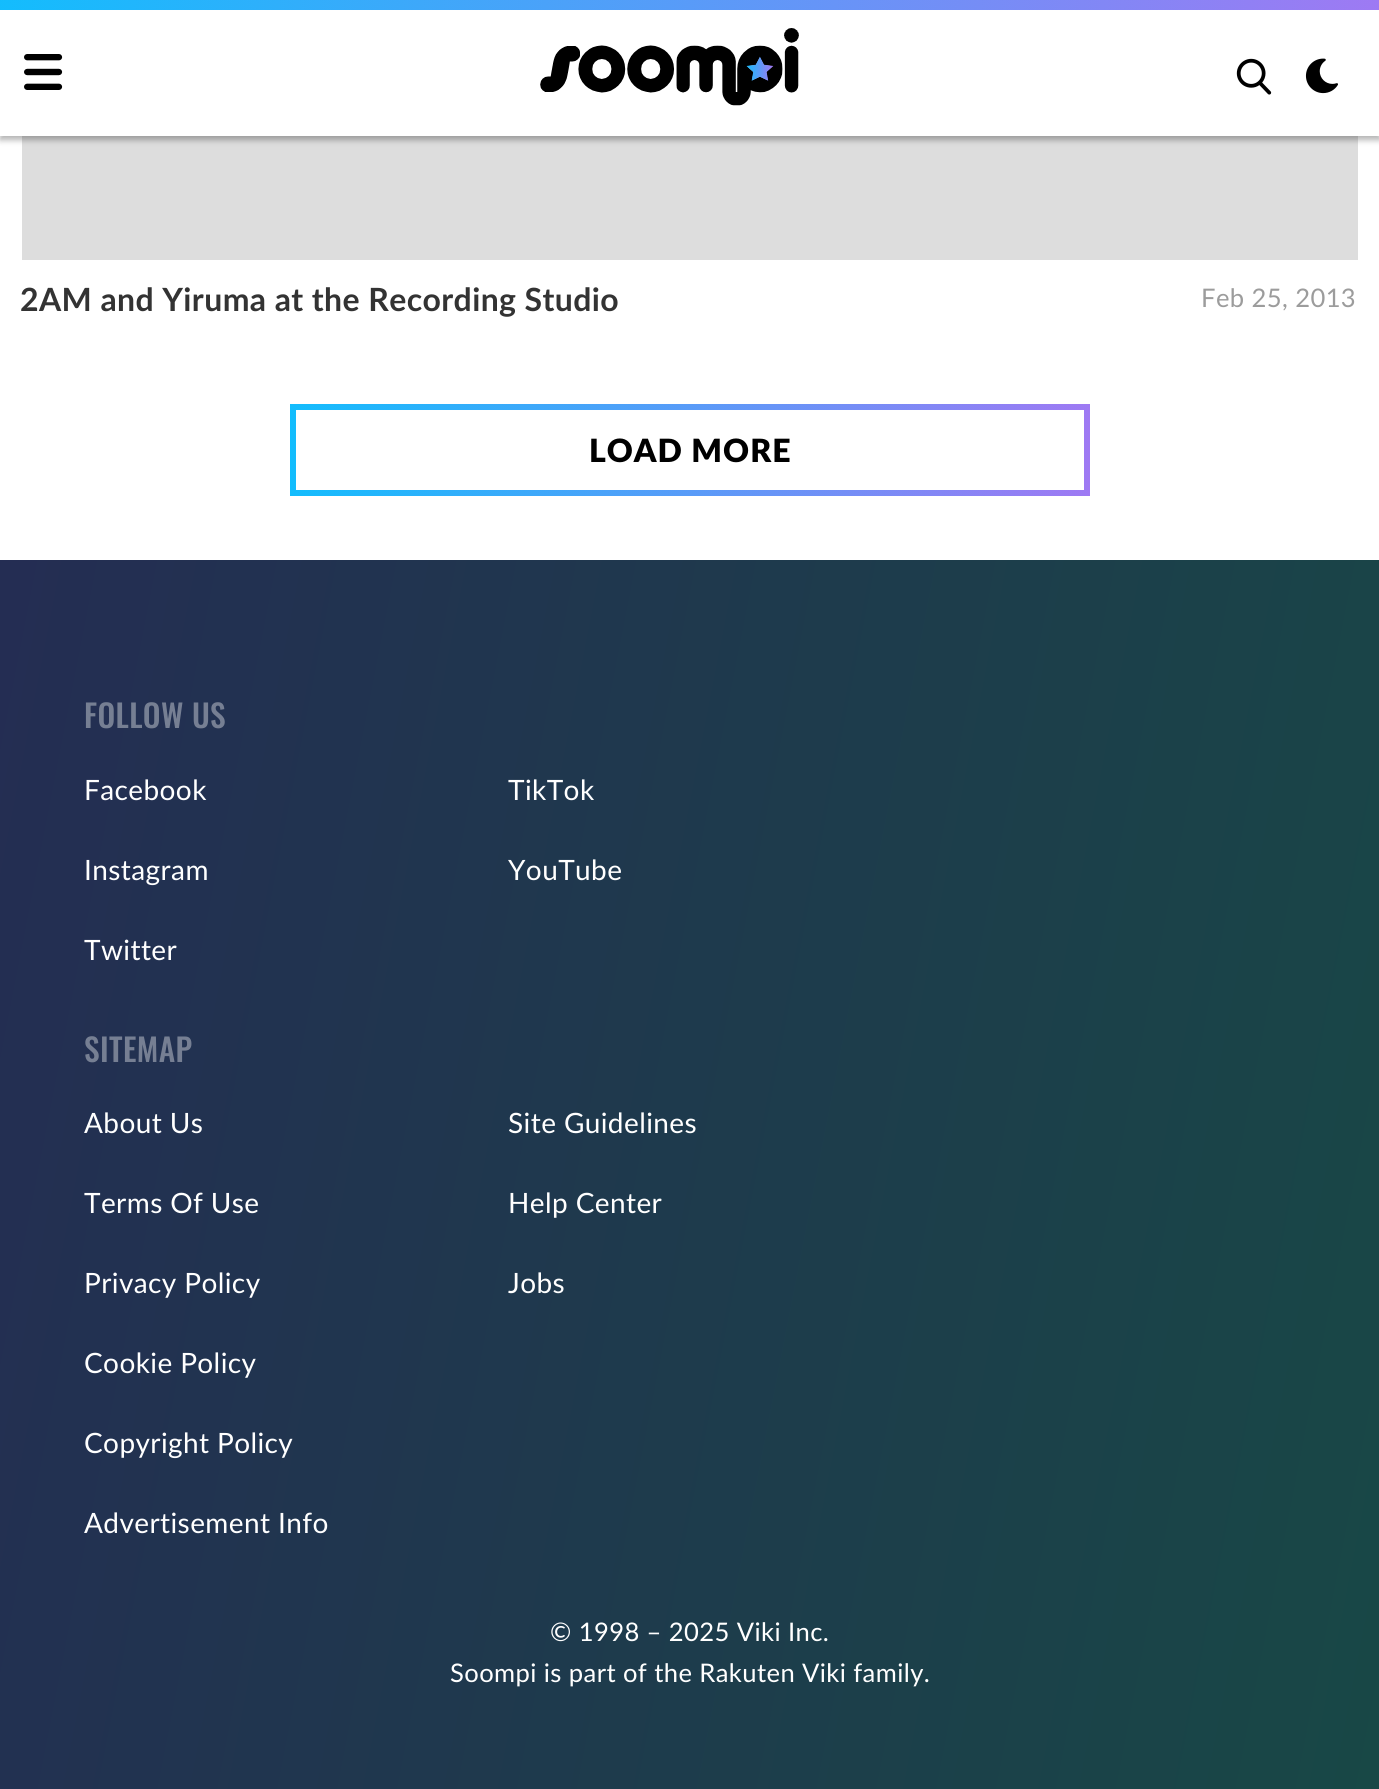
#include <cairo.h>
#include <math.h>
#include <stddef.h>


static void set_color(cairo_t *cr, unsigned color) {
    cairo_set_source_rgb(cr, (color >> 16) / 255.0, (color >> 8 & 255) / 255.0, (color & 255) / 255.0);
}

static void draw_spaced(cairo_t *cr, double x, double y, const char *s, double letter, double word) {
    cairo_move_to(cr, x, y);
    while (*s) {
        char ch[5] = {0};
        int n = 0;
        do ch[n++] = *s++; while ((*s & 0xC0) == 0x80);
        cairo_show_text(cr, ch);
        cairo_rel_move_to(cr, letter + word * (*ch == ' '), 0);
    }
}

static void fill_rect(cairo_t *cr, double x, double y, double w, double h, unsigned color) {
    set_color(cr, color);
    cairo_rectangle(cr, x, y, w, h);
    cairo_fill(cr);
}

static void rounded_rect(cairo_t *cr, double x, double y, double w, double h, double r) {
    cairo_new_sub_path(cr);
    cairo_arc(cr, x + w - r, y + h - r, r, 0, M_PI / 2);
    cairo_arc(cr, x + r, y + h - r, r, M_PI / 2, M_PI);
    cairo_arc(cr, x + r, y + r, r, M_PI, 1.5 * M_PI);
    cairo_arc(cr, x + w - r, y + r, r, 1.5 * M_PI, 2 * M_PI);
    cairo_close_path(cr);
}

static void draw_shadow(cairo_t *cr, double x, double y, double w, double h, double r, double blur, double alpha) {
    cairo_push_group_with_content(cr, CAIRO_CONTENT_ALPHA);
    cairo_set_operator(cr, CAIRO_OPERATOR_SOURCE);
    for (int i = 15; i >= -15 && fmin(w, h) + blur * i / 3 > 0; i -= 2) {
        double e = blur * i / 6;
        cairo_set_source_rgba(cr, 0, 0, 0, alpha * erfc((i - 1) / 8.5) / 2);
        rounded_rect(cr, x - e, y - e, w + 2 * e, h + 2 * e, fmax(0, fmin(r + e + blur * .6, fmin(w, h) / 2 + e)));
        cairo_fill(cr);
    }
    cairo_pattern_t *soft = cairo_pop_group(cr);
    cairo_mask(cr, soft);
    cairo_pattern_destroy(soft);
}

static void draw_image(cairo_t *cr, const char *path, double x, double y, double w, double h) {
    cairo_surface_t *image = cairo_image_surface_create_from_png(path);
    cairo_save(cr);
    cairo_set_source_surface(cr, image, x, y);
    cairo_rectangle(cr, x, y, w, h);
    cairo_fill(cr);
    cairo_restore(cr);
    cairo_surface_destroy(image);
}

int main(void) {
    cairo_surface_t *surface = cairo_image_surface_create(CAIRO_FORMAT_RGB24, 1379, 1789);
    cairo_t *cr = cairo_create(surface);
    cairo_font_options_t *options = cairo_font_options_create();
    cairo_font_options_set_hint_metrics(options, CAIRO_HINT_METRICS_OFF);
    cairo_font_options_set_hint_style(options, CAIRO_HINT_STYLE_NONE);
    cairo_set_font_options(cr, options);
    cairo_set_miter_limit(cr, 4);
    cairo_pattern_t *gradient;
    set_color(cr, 0xFFFFFF);
    cairo_paint(cr);
    fill_rect(cr, 22, 136, 1336, 124, 0xDDDDDD);
    set_color(cr, 0x000000);
    draw_shadow(cr, 0, 4, 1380, 136, 0, 3, 0.3);
    fill_rect(cr, 0, 10, 1379, 126, 0xFFFFFF);
    draw_image(cr, "assets/img1.png", 0, 0, 1379, 10);
    draw_image(cr, "assets/img2.png", 24, 54, 39, 36);
    draw_image(cr, "assets/img3.png", 540, 28, 259, 78);
    draw_image(cr, "assets/img4.png", 1236, 58, 36, 37);
    draw_image(cr, "assets/img5.png", 1305, 58, 33, 36);
    cairo_select_font_face(cr, "Lato", CAIRO_FONT_SLANT_NORMAL, CAIRO_FONT_WEIGHT_BOLD);
    cairo_set_font_size(cr, 32);
    set_color(cr, 0x333333);
    draw_spaced(cr, 20, 311, "2AM and Yiruma at the Recording Studio", 0.4, 0);
    cairo_select_font_face(cr, "Lato", CAIRO_FONT_SLANT_NORMAL, CAIRO_FONT_WEIGHT_NORMAL);
    cairo_set_font_size(cr, 25.6);
    set_color(cr, 0x9C9C9C);
    draw_spaced(cr, 1201, 307, "Feb 25, 2013", 0.4, 0);
    draw_image(cr, "assets/img6.png", 290, 404, 800, 92);
    cairo_select_font_face(cr, "Lato Black", CAIRO_FONT_SLANT_NORMAL, CAIRO_FONT_WEIGHT_NORMAL);
    cairo_set_font_size(cr, 32);
    set_color(cr, 0x000000);
    draw_spaced(cr, 589, 462, "LOAD MORE", 1, 0);
    gradient = cairo_pattern_create_linear(-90, 1023, 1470, 1327);
    cairo_pattern_add_color_stop_rgba(gradient, 0, 0.141, 0.176, 0.325, 1);
    cairo_pattern_add_color_stop_rgba(gradient, 1, 0.094, 0.282, 0.275, 1);
    cairo_set_source(cr, gradient);
    cairo_pattern_destroy(gradient);
    cairo_rectangle(cr, 0, 560, 1379, 1229);
    cairo_fill(cr);
    cairo_select_font_face(cr, "Oswald Medium", CAIRO_FONT_SLANT_NORMAL, CAIRO_FONT_WEIGHT_NORMAL);
    cairo_set_font_size(cr, 31.5);
    set_color(cr, 0x767F93);
    draw_spaced(cr, 84, 728, "FOLLOW US", 0.4, 0);
    cairo_select_font_face(cr, "Lato", CAIRO_FONT_SLANT_NORMAL, CAIRO_FONT_WEIGHT_NORMAL);
    cairo_set_font_size(cr, 28);
    set_color(cr, 0xFFFFFF);
    draw_spaced(cr, 84, 800, "Facebook", 0.4, 0);
    draw_spaced(cr, 508, 800, "TikTok", 0.4, 0);
    draw_spaced(cr, 84, 880, "Instagram", 0.4, 0);
    draw_spaced(cr, 508, 880, "YouTube", 0.4, 0);
    draw_spaced(cr, 84, 960, "Twitter", 0.4, 0);
    cairo_select_font_face(cr, "Oswald Medium", CAIRO_FONT_SLANT_NORMAL, CAIRO_FONT_WEIGHT_NORMAL);
    cairo_set_font_size(cr, 31.5);
    set_color(cr, 0x767F93);
    draw_spaced(cr, 84, 1062, "SITEMAP", 0.4, 0);
    cairo_select_font_face(cr, "Lato", CAIRO_FONT_SLANT_NORMAL, CAIRO_FONT_WEIGHT_NORMAL);
    cairo_set_font_size(cr, 28);
    set_color(cr, 0xFFFFFF);
    draw_spaced(cr, 84, 1133, "About Us", 0.4, 0);
    draw_spaced(cr, 508, 1133, "Site Guidelines", 0.4, 0);
    draw_spaced(cr, 84, 1213, "Terms Of Use", 0.4, 0);
    draw_spaced(cr, 508, 1213, "Help Center", 0.4, 0);
    draw_spaced(cr, 84, 1293, "Privacy Policy", 0.4, 0);
    draw_spaced(cr, 508, 1293, "Jobs", 0.4, 0);
    draw_spaced(cr, 84, 1373, "Cookie Policy", 0.4, 0);
    draw_spaced(cr, 84, 1453, "Copyright Policy", 0.4, 0);
    draw_spaced(cr, 84, 1533, "Advertisement Info", 0.4, 0);
    cairo_set_font_size(cr, 25.6);
    draw_spaced(cr, 550, 1641, "© 1998 – 2025 Viki Inc.", 0.4, 0);
    draw_spaced(cr, 450, 1682, "Soompi is part of the Rakuten Viki family.", 0.4, 0);
    cairo_surface_write_to_png(surface, "output.png");
    cairo_font_options_destroy(options);
    cairo_destroy(cr);
    cairo_surface_destroy(surface);
    return 0;
}
